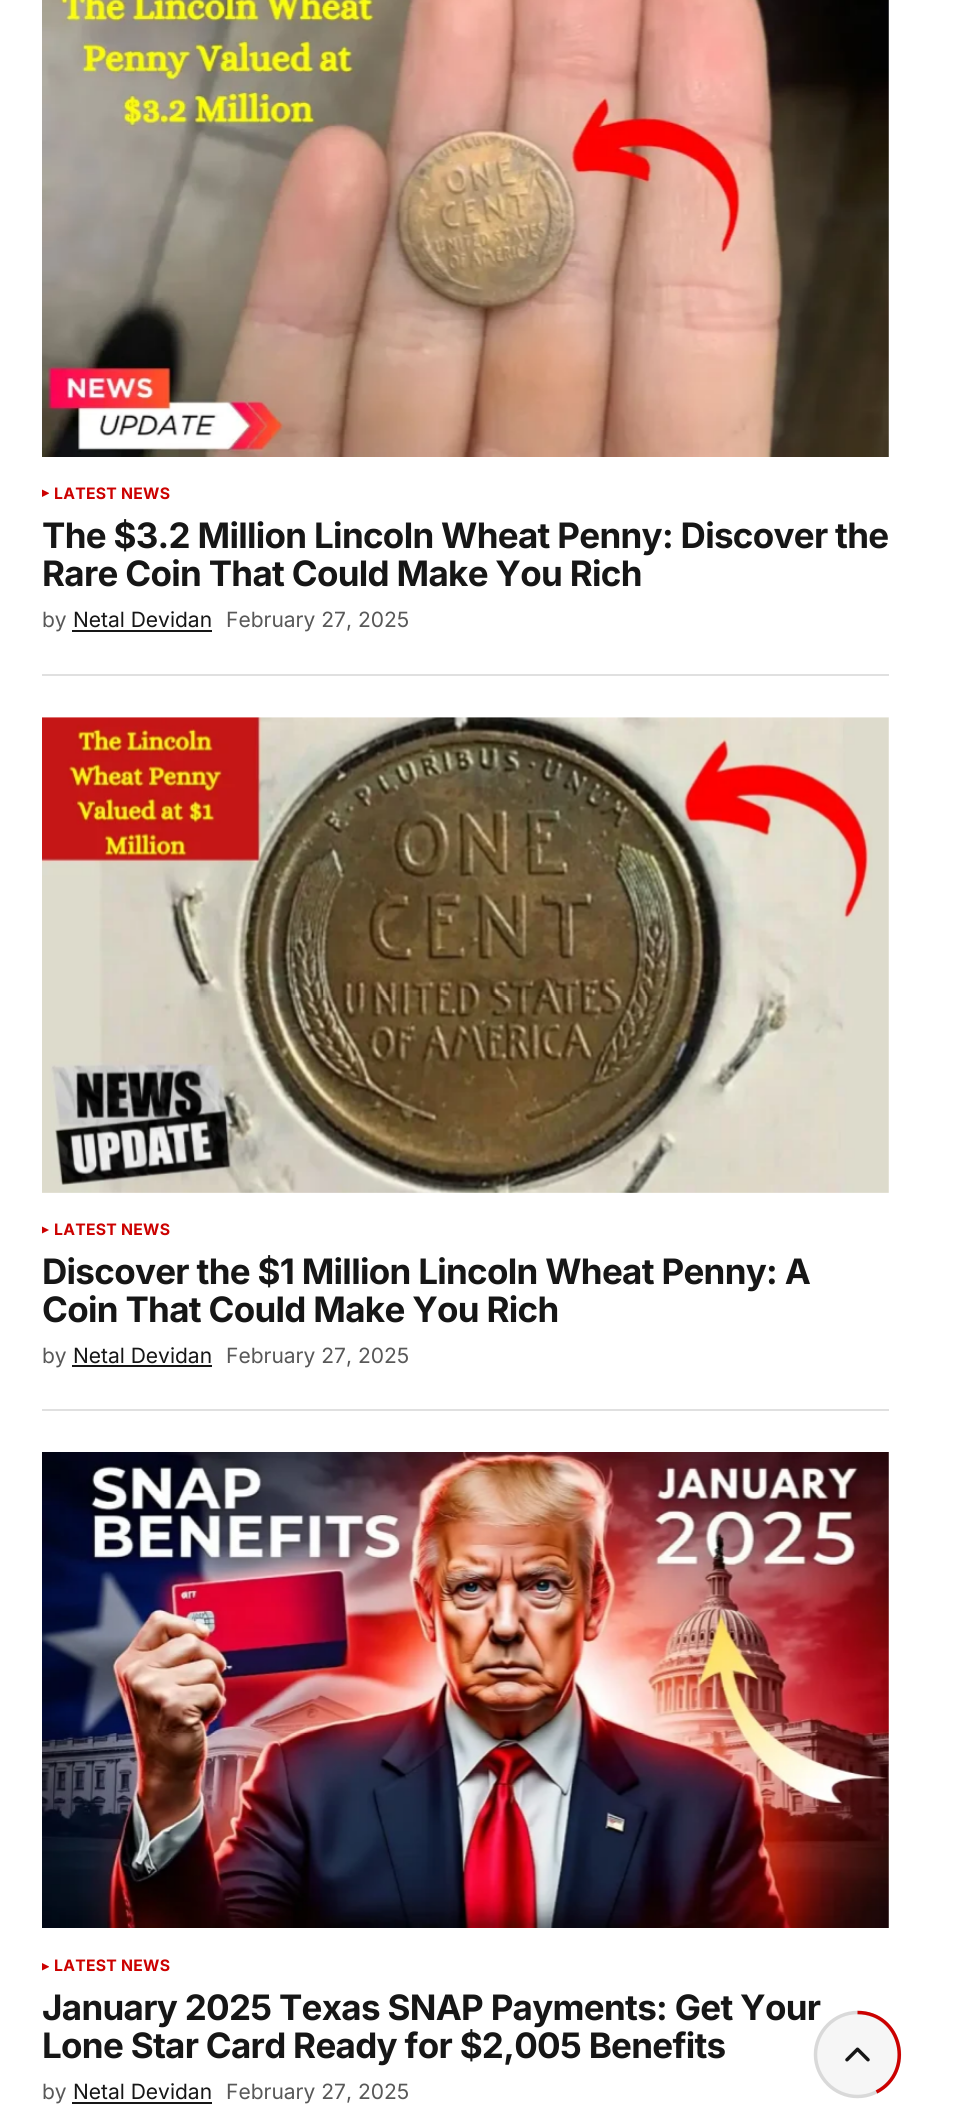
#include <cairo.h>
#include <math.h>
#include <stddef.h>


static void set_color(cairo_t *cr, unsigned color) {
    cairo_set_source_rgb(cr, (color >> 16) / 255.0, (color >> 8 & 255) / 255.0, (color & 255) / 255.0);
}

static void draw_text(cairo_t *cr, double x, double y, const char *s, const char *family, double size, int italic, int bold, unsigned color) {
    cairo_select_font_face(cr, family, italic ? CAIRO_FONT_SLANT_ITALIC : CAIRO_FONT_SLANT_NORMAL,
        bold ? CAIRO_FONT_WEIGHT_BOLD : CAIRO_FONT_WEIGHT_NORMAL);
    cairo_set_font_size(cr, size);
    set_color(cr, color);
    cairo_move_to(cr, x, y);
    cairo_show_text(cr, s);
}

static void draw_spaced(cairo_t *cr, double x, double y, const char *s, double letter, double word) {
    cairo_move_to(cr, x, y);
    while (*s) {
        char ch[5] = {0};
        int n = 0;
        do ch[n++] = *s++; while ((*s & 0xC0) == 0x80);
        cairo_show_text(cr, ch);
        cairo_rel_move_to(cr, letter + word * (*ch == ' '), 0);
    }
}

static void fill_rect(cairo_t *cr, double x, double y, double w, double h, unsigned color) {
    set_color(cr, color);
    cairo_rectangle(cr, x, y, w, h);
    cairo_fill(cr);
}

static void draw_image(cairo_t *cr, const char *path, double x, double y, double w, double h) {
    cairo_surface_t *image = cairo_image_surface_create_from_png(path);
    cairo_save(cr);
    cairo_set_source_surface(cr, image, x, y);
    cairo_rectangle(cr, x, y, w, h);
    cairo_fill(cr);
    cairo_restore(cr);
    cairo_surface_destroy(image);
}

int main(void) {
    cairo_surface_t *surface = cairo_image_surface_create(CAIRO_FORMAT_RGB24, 957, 2128);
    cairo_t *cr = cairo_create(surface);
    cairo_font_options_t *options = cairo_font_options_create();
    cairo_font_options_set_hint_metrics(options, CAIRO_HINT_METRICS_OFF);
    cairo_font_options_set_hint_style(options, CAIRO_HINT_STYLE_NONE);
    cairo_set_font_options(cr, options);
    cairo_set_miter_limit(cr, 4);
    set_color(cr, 0xFFFFFF);
    cairo_paint(cr);
    draw_image(cr, "assets/img1.png", 42, 0, 847, 457);
    set_color(cr, 0xCC0100);
    cairo_new_path(cr);
    cairo_move_to(cr, 49, 493.5);
    cairo_line_to(cr, 42, 497);
    cairo_line_to(cr, 42, 489.5);
    cairo_line_to(cr, 49, 493);
    cairo_close_path(cr);
    cairo_fill(cr);
    cairo_select_font_face(cr, "Inter", CAIRO_FONT_SLANT_NORMAL, CAIRO_FONT_WEIGHT_BOLD);
    cairo_set_font_size(cr, 15.75);
    draw_spaced(cr, 54, 499, "LATEST NEWS", 0.25, 0);
    cairo_set_font_size(cr, 35);
    set_color(cr, 0x161616);
    draw_spaced(cr, 42, 548, "The $3.2 Million Lincoln Wheat Penny: Discover the", -0.7, 0);
    draw_spaced(cr, 42, 586, "Rare Coin That Could Make You Rich", -0.7, 0);
    draw_text(cr, 42, 627, "by", "Inter", 21, 0, 0, 0x585858);
    fill_rect(cr, 72, 630, 140, 2, 0x161616);
    draw_text(cr, 73, 627, "Netal Devidan", "Inter", 21, 0, 0, 0x161616);
    draw_text(cr, 226, 627, "February 27, 2025", "Inter", 21, 0, 0, 0x585858);
    fill_rect(cr, 42, 674, 847, 2, 0xE0E0E0);
    draw_image(cr, "assets/img2.png", 42, 717, 847, 476);
    set_color(cr, 0xCC0100);
    cairo_new_path(cr);
    cairo_move_to(cr, 49, 1230);
    cairo_line_to(cr, 42, 1233.5);
    cairo_line_to(cr, 42, 1226.5);
    cairo_close_path(cr);
    cairo_fill(cr);
    cairo_select_font_face(cr, "Inter", CAIRO_FONT_SLANT_NORMAL, CAIRO_FONT_WEIGHT_BOLD);
    cairo_set_font_size(cr, 15.75);
    draw_spaced(cr, 54, 1235, "LATEST NEWS", 0.25, 0);
    cairo_set_font_size(cr, 35);
    set_color(cr, 0x161616);
    draw_spaced(cr, 42, 1284, "Discover the $1 Million Lincoln Wheat Penny: A", -0.7, 0);
    draw_spaced(cr, 42, 1322, "Coin That Could Make You Rich", -0.7, 0);
    draw_text(cr, 42, 1363, "by", "Inter", 21, 0, 0, 0x585858);
    fill_rect(cr, 72, 1365, 140, 2, 0x161616);
    draw_text(cr, 73, 1363, "Netal Devidan", "Inter", 21, 0, 0, 0x161616);
    draw_text(cr, 226, 1363, "February 27, 2025", "Inter", 21, 0, 0, 0x585858);
    fill_rect(cr, 42, 1409, 847, 2, 0xE0E0E0);
    draw_image(cr, "assets/img3.png", 42, 1452, 847, 476);
    set_color(cr, 0xCC0100);
    cairo_new_path(cr);
    cairo_move_to(cr, 49, 1967);
    cairo_line_to(cr, 42, 1970.5);
    cairo_line_to(cr, 42, 1963);
    cairo_line_to(cr, 49, 1966.5);
    cairo_close_path(cr);
    cairo_fill(cr);
    cairo_select_font_face(cr, "Inter", CAIRO_FONT_SLANT_NORMAL, CAIRO_FONT_WEIGHT_BOLD);
    cairo_set_font_size(cr, 15.75);
    draw_spaced(cr, 54, 1971, "LATEST NEWS", 0.25, 0);
    cairo_set_font_size(cr, 35);
    set_color(cr, 0x161616);
    draw_spaced(cr, 42, 2020, "January 2025 Texas SNAP Payments: Get Your", -0.7, 0);
    draw_spaced(cr, 42, 2058, "Lone Star Card Ready for $2,005 Benefits", -0.7, 0);
    draw_text(cr, 42, 2099, "by", "Inter", 21, 0, 0, 0x585858);
    fill_rect(cr, 72, 2102, 140, 2, 0x161616);
    draw_text(cr, 73, 2099, "Netal Devidan", "Inter", 21, 0, 0, 0x161616);
    draw_text(cr, 226, 2099, "February 27, 2025", "Inter", 21, 0, 0, 0x585858);
    set_color(cr, 0xF6F6F6);
    cairo_new_path(cr);
    cairo_arc(cr, 858, 2055, 42, 0, 2 * M_PI);
    cairo_fill(cr);
    draw_image(cr, "assets/img4.png", 845, 2047, 25, 15);
    cairo_new_path(cr);
    cairo_move_to(cr, 857.5, 2012.5);
    cairo_curve_to(cr, 880.5, 2012.5, 899.5, 2031.5, 899.5, 2054.5);
    cairo_curve_to(cr, 899.5, 2077.5, 880.5, 2096.5, 857.5, 2096.5);
    cairo_curve_to(cr, 834.5, 2096.5, 815.5, 2077.5, 815.5, 2054.5);
    cairo_curve_to(cr, 815.5, 2031.5, 834.5, 2012.5, 857.5, 2012.5);
    set_color(cr, 0xD9D9D9);
    cairo_set_line_width(cr, 3.5);
    cairo_stroke(cr);
    cairo_new_path(cr);
    cairo_move_to(cr, 857.5, 2012.5);
    cairo_curve_to(cr, 902, 2012.5, 915, 2072, 876.5, 2092);
    set_color(cr, 0xCC0100);
    cairo_stroke(cr);
    cairo_surface_write_to_png(surface, "output.png");
    cairo_font_options_destroy(options);
    cairo_destroy(cr);
    cairo_surface_destroy(surface);
    return 0;
}
